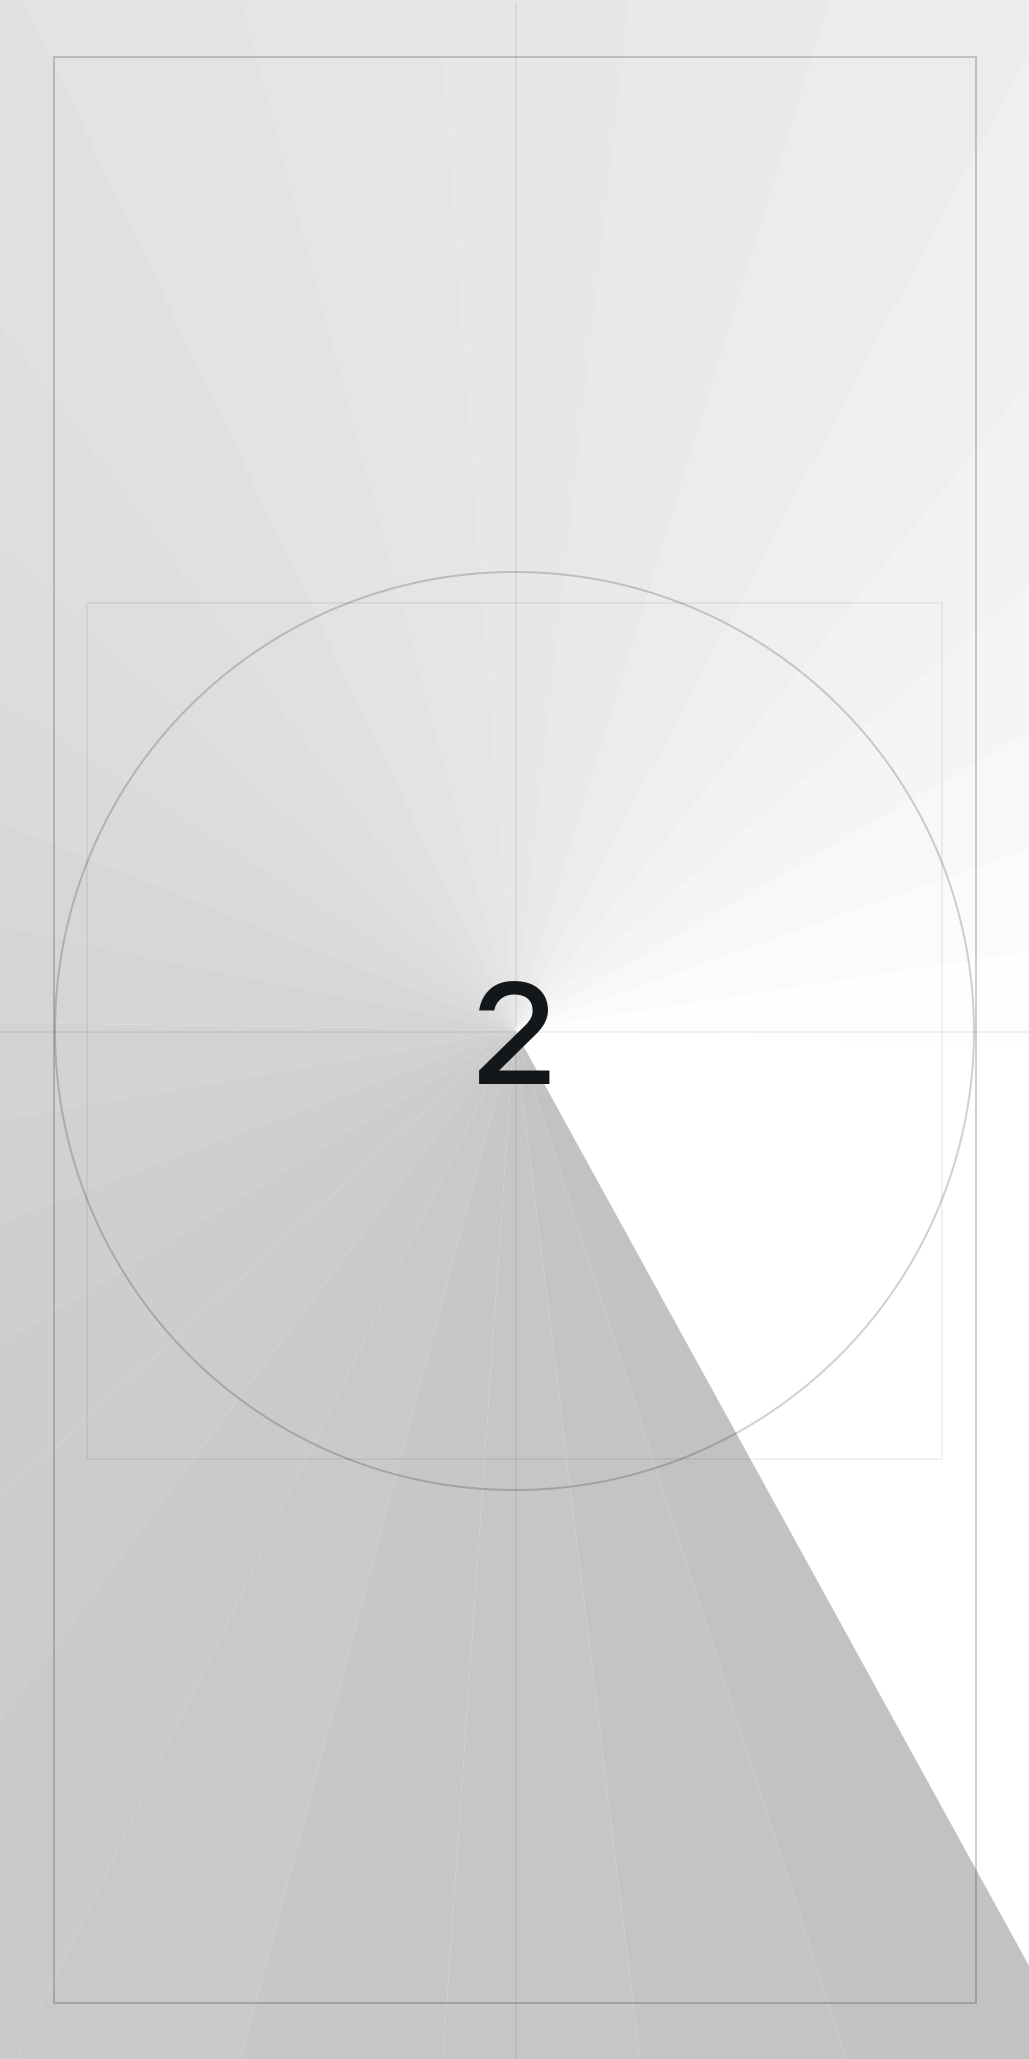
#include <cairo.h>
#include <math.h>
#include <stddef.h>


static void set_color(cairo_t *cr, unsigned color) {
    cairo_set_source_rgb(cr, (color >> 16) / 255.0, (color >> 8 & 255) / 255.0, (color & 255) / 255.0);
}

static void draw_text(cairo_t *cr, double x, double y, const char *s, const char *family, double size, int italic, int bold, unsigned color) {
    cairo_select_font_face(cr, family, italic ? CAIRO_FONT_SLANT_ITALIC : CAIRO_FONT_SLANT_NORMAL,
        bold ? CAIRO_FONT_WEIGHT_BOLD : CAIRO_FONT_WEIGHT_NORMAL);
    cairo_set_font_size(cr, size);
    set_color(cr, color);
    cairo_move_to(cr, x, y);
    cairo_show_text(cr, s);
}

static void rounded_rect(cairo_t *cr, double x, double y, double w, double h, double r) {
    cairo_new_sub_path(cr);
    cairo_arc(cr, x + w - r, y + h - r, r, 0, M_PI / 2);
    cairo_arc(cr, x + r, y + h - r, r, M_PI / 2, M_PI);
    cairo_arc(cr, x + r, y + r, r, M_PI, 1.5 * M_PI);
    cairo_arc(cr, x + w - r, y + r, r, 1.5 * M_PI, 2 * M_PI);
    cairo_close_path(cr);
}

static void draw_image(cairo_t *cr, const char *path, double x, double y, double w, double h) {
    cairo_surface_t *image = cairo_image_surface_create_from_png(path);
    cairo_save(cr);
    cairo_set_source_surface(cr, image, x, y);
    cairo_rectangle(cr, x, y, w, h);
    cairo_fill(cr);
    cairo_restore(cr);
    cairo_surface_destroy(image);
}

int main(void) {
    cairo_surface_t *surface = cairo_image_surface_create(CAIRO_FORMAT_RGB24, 1029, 2059);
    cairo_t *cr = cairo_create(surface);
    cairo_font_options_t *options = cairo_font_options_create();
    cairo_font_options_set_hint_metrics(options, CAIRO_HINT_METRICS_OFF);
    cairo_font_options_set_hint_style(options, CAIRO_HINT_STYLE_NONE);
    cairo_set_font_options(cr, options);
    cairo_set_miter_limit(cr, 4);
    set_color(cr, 0xFFFFFF);
    cairo_paint(cr);
    draw_image(cr, "assets/img1.png", 0, 0, 1029, 2059);
    cairo_set_source_rgba(cr, 0.075, 0.09, 0.102, 0.06);
    cairo_rectangle(cr, 0, 1031, 1029, 2);
    cairo_fill(cr);
    cairo_rectangle(cr, 515, 2, 2, 2057);
    cairo_fill(cr);
    cairo_rectangle(cr, 54, 57, 922, 1946);
    cairo_set_source_rgba(cr, 0.075, 0.09, 0.102, 0.2);
    cairo_stroke(cr);
    rounded_rect(cr, 55, 572, 919, 918, 459);
    cairo_stroke(cr);
    cairo_rectangle(cr, 87, 603, 855, 856);
    cairo_set_source_rgba(cr, 0.075, 0.09, 0.102, 0.06);
    cairo_stroke(cr);
    draw_text(cr, 473, 1084, "2", "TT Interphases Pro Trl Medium", 145, 0, 0, 0x13171A);
    cairo_surface_write_to_png(surface, "output.png");
    cairo_font_options_destroy(options);
    cairo_destroy(cr);
    cairo_surface_destroy(surface);
    return 0;
}
